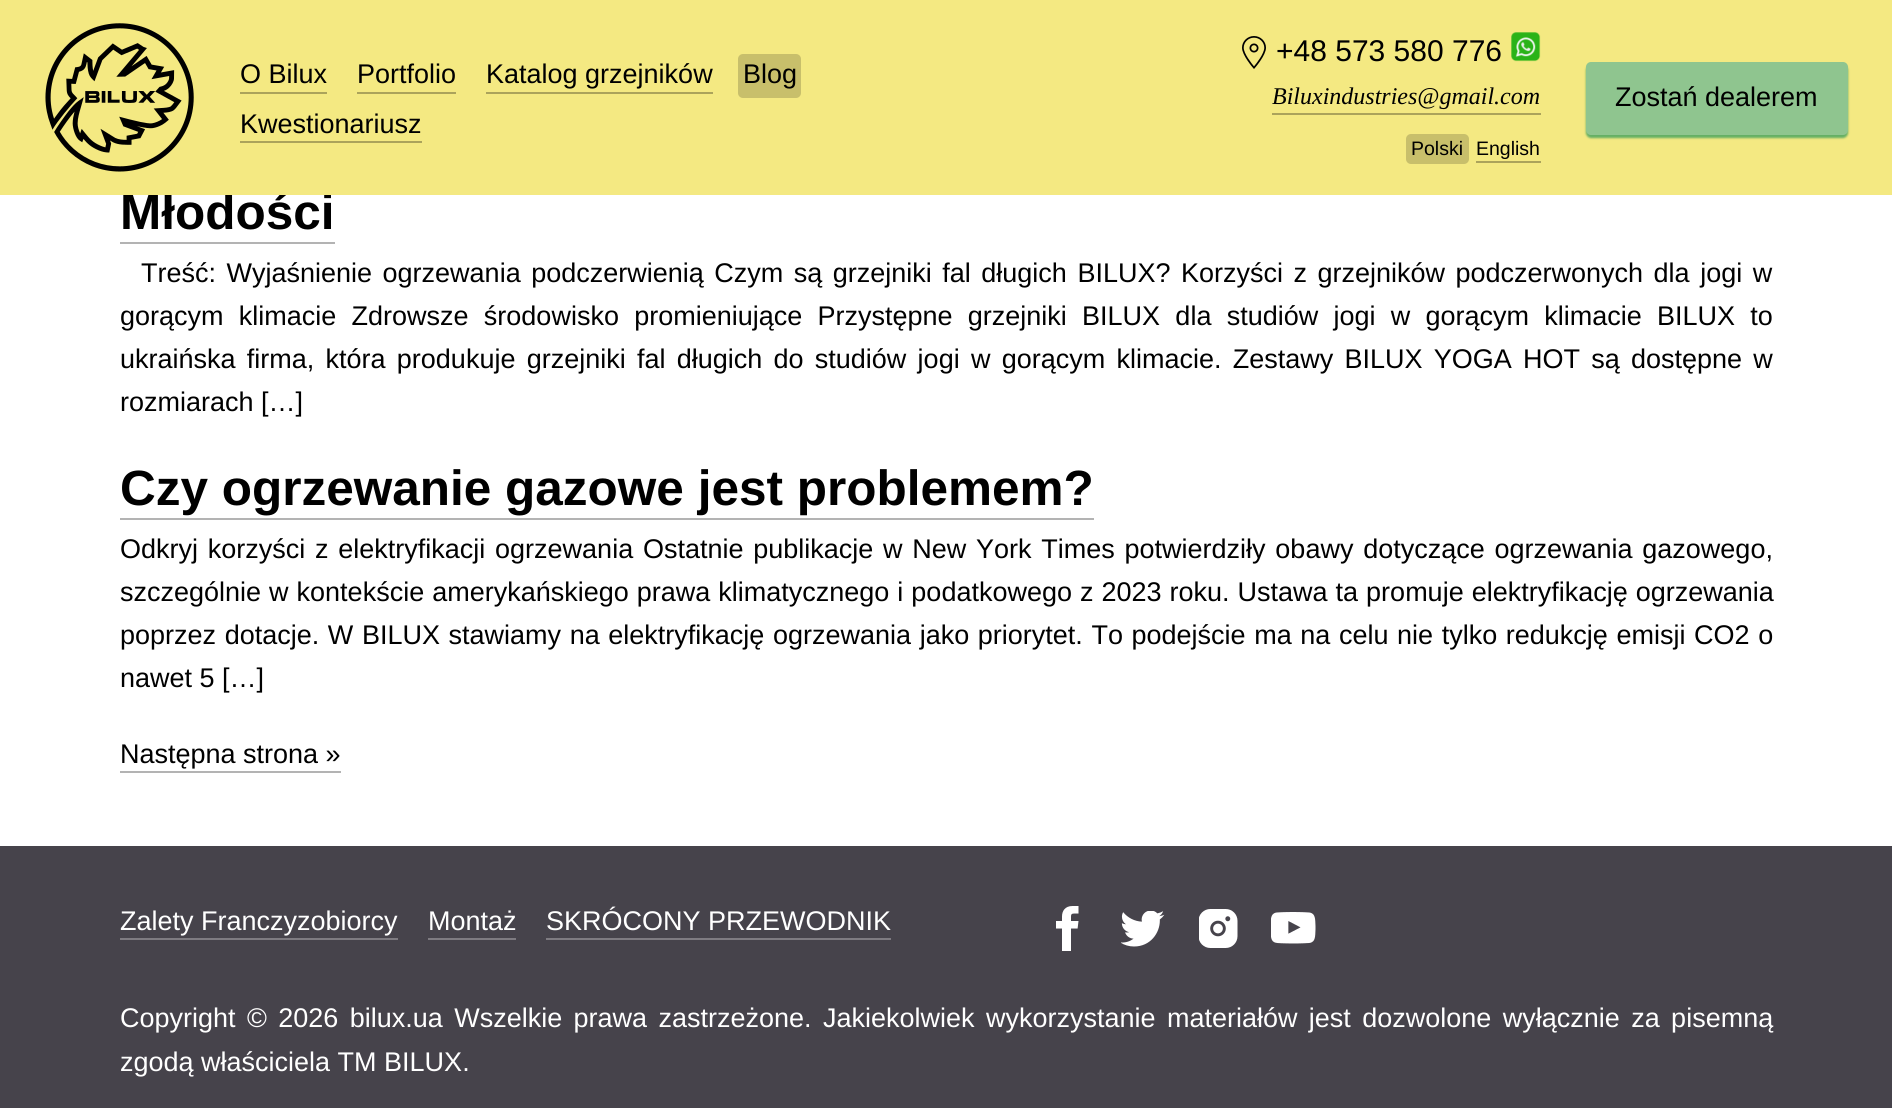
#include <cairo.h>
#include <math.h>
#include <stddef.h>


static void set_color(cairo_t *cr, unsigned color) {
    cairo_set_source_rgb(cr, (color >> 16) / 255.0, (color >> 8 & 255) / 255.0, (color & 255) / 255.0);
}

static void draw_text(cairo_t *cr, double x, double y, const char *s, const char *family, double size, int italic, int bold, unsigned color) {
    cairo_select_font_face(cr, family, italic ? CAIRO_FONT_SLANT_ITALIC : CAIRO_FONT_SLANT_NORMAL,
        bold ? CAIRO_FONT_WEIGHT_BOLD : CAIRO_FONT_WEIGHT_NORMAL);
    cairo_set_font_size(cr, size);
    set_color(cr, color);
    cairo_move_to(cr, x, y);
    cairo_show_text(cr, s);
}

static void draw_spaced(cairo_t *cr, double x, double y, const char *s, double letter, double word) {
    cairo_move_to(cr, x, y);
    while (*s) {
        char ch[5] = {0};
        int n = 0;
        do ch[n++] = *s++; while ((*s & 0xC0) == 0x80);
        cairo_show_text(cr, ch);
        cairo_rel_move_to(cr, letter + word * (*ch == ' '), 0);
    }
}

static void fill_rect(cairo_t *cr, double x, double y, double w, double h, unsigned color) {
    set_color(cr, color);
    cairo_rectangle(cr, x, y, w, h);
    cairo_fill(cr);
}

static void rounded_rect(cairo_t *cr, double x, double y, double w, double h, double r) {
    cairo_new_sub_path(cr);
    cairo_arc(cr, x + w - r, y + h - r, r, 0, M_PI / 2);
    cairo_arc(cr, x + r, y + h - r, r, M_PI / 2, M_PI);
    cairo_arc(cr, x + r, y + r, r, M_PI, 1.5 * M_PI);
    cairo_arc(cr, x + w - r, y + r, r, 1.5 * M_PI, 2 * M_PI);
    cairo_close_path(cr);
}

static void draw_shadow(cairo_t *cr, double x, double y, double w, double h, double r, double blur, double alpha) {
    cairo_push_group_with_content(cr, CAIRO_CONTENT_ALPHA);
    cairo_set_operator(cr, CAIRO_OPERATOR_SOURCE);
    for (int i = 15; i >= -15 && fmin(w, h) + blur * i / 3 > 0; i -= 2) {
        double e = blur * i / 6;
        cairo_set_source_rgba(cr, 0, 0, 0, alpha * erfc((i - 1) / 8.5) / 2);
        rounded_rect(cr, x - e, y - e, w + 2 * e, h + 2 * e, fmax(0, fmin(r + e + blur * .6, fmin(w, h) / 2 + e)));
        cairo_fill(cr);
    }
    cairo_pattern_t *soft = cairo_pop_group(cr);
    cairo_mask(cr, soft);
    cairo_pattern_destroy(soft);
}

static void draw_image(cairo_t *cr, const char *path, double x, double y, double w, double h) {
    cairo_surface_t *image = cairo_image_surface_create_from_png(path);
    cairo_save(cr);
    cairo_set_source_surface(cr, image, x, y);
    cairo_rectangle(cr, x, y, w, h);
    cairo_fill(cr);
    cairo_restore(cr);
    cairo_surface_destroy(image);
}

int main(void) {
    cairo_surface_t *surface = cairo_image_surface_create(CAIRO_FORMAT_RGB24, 1892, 1108);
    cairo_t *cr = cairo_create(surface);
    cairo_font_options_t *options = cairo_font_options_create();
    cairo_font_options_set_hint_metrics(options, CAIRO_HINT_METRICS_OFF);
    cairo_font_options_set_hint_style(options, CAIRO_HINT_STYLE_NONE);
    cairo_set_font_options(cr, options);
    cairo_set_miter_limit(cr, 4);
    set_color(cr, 0xFFFFFF);
    cairo_paint(cr);
    draw_text(cr, 120, 229, "Młodości", "Liberation Sans", 49.5, 0, 1, 0x000000);
    fill_rect(cr, 0, 0, 1892, 195, 0xF4E982);
    draw_image(cr, "assets/img1.png", 45, 23, 149, 149);
    draw_text(cr, 240, 83, "O Bilux", "Liberation Sans", 27, 0, 0, 0x000000);
    fill_rect(cr, 240, 92, 87, 2, 0xABA35B);
    draw_text(cr, 357, 83, "Portfolio", "Liberation Sans", 27, 0, 0, 0x000000);
    fill_rect(cr, 357, 92, 99, 2, 0xABA35B);
    draw_text(cr, 486, 83, "Katalog grzejników", "Liberation Sans", 27, 0, 0, 0x000000);
    fill_rect(cr, 486, 92, 227, 2, 0xABA35B);
    set_color(cr, 0xC8BF6B);
    rounded_rect(cr, 738, 54, 63, 44, 5);
    cairo_fill(cr);
    draw_text(cr, 743, 83, "Blog", "Liberation Sans", 27, 0, 0, 0x000000);
    draw_text(cr, 240, 133, "Kwestionariusz", "Liberation Sans", 27, 0, 0, 0x000000);
    fill_rect(cr, 240, 141, 182, 2, 0xABA35B);
    draw_image(cr, "assets/img2.png", 1242, 36, 24, 33);
    draw_text(cr, 1276, 61, "+48 573 580 776", "Liberation Sans", 30, 0, 0, 0x000000);
    draw_image(cr, "assets/img3.png", 1511, 32, 30, 30);
    fill_rect(cr, 1272, 113, 269, 2, 0xABA35B);
    draw_text(cr, 1272, 104, "Biluxindustries@gmail.com", "Liberation Serif", 24, 1, 0, 0x000000);
    set_color(cr, 0xC8BF6B);
    rounded_rect(cr, 1406, 134, 63, 30, 5);
    cairo_fill(cr);
    draw_text(cr, 1411, 155, "Polski", "Liberation Sans", 19.5, 0, 0, 0x000000);
    draw_text(cr, 1476, 155, "English", "Liberation Sans", 19.5, 0, 0, 0x000000);
    fill_rect(cr, 1476, 161, 65, 2, 0xABA35B);
    set_color(cr, 0x64AF64);
    draw_shadow(cr, 1586, 65, 262, 73, 5, 1, 1);
    set_color(cr, 0x8FC58F);
    rounded_rect(cr, 1586, 62, 262, 73, 5);
    cairo_fill(cr);
    draw_text(cr, 1615, 106, "Zostań dealerem", "Liberation Sans", 27, 0, 0, 0x000000);
    fill_rect(cr, 120, 242, 215, 2, 0xB3B3B3);
    set_color(cr, 0x000000);
    draw_spaced(cr, 141, 282, "Treść: Wyjaśnienie ogrzewania podczerwienią Czym są grzejniki fal długich BILUX? Korzyści z grzejników podczerwonych dla jogi w", 0, 3);
    draw_spaced(cr, 120, 325, "gorącym klimacie Zdrowsze środowisko promieniujące Przystępne grzejniki BILUX dla studiów jogi w gorącym klimacie BILUX to", 0, 7.75);
    draw_spaced(cr, 120, 368, "ukraińska firma, która produkuje grzejniki fal długich do studiów jogi w gorącym klimacie. Zestawy BILUX YOGA HOT są dostępne w", 0, 3.75);
    draw_text(cr, 120, 411, "rozmiarach […]", "Liberation Sans", 27, 0, 0, 0x000000);
    draw_text(cr, 120, 505, "Czy ogrzewanie gazowe jest problemem?", "Liberation Sans", 49.5, 0, 1, 0x000000);
    fill_rect(cr, 120, 518, 974, 2, 0xB3B3B3);
    cairo_select_font_face(cr, "Liberation Sans", CAIRO_FONT_SLANT_NORMAL, CAIRO_FONT_WEIGHT_NORMAL);
    cairo_set_font_size(cr, 27);
    set_color(cr, 0x000000);
    draw_spaced(cr, 120, 558, "Odkryj korzyści z elektryfikacji ogrzewania Ostatnie publikacje w New York Times potwierdziły obawy dotyczące ogrzewania gazowego,", 0, 2.25);
    draw_spaced(cr, 120, 601, "szczególnie w kontekście amerykańskiego prawa klimatycznego i podatkowego z 2023 roku. Ustawa ta promuje elektryfikację ogrzewania", 0, 0.5);
    draw_spaced(cr, 120, 644, "poprzez dotacje. W BILUX stawiamy na elektryfikację ogrzewania jako priorytet. To podejście ma na celu nie tylko redukcję emisji CO2 o", 0, 1.1);
    draw_text(cr, 120, 687, "nawet 5 […]", "Liberation Sans", 27, 0, 0, 0x000000);
    draw_text(cr, 120, 763, "Następna strona »", "Liberation Sans", 27, 0, 0, 0x000000);
    fill_rect(cr, 120, 771, 221, 2, 0xB3B3B3);
    fill_rect(cr, 0, 846, 1892, 262, 0x46434B);
    draw_text(cr, 120, 930, "Zalety Franczyzobiorcy", "Liberation Sans", 27, 0, 0, 0xFFFFFF);
    fill_rect(cr, 120, 938, 278, 2, 0x7E7B81);
    draw_text(cr, 428, 930, "Montaż", "Liberation Sans", 27, 0, 0, 0xFFFFFF);
    fill_rect(cr, 428, 938, 88, 2, 0x7E7B81);
    draw_text(cr, 546, 930, "SKRÓCONY PRZEWODNIK", "Liberation Sans", 27, 0, 0, 0xFFFFFF);
    fill_rect(cr, 546, 938, 345, 2, 0x7E7B81);
    draw_image(cr, "assets/img4.png", 1056, 906, 23, 45);
    draw_image(cr, "assets/img5.png", 1121, 911, 44, 36);
    draw_image(cr, "assets/img6.png", 1199, 909, 39, 39);
    draw_image(cr, "assets/img7.png", 1271, 912, 45, 32);
    set_color(cr, 0xFFFFFF);
    draw_spaced(cr, 120, 1027, "Copyright © 2026 bilux.ua Wszelkie prawa zastrzeżone. Jakiekolwiek wykorzystanie materiałów jest dozwolone wyłącznie za pisemną", 0, 3.9);
    draw_text(cr, 120, 1071, "zgodą właściciela TM BILUX.", "Liberation Sans", 27, 0, 0, 0xFFFFFF);
    cairo_surface_write_to_png(surface, "output.png");
    cairo_font_options_destroy(options);
    cairo_destroy(cr);
    cairo_surface_destroy(surface);
    return 0;
}
